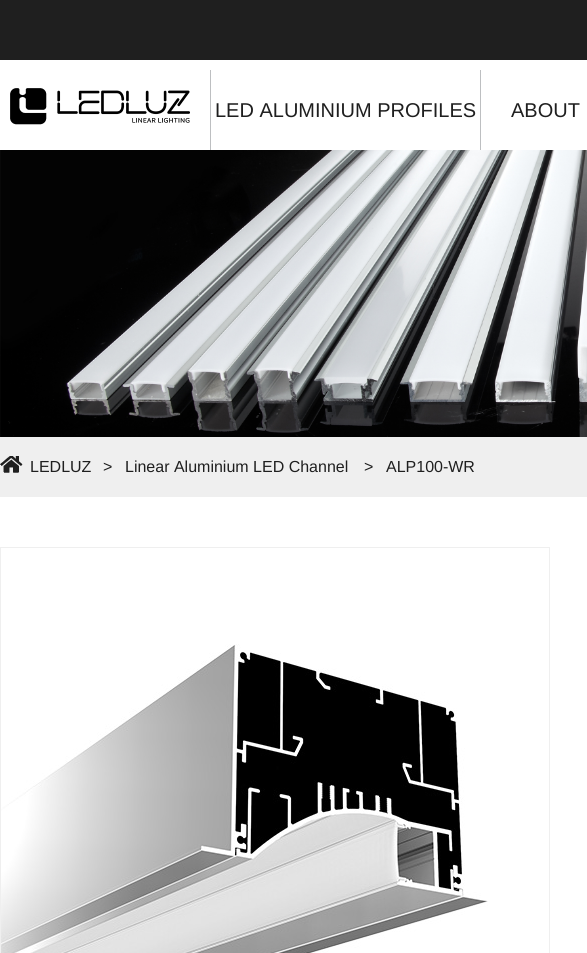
#include <cairo.h>
#include <math.h>
#include <stddef.h>


static void set_color(cairo_t *cr, unsigned color) {
    cairo_set_source_rgb(cr, (color >> 16) / 255.0, (color >> 8 & 255) / 255.0, (color & 255) / 255.0);
}

static void draw_text(cairo_t *cr, double x, double y, const char *s, const char *family, double size, int italic, int bold, unsigned color) {
    cairo_select_font_face(cr, family, italic ? CAIRO_FONT_SLANT_ITALIC : CAIRO_FONT_SLANT_NORMAL,
        bold ? CAIRO_FONT_WEIGHT_BOLD : CAIRO_FONT_WEIGHT_NORMAL);
    cairo_set_font_size(cr, size);
    set_color(cr, color);
    cairo_move_to(cr, x, y);
    cairo_show_text(cr, s);
}

static void fill_rect(cairo_t *cr, double x, double y, double w, double h, unsigned color) {
    set_color(cr, color);
    cairo_rectangle(cr, x, y, w, h);
    cairo_fill(cr);
}

static void draw_image(cairo_t *cr, const char *path, double x, double y, double w, double h) {
    cairo_surface_t *image = cairo_image_surface_create_from_png(path);
    cairo_save(cr);
    cairo_set_source_surface(cr, image, x, y);
    cairo_rectangle(cr, x, y, w, h);
    cairo_fill(cr);
    cairo_restore(cr);
    cairo_surface_destroy(image);
}

int main(void) {
    cairo_surface_t *surface = cairo_image_surface_create(CAIRO_FORMAT_RGB24, 587, 953);
    cairo_t *cr = cairo_create(surface);
    cairo_font_options_t *options = cairo_font_options_create();
    cairo_font_options_set_hint_metrics(options, CAIRO_HINT_METRICS_OFF);
    cairo_font_options_set_hint_style(options, CAIRO_HINT_STYLE_NONE);
    cairo_set_font_options(cr, options);
    cairo_set_miter_limit(cr, 4);
    set_color(cr, 0xFFFFFF);
    cairo_paint(cr);
    fill_rect(cr, 0, 0, 587, 60, 0x1F1F1F);
    draw_image(cr, "assets/img1.png", 10, 88, 180, 37);
    fill_rect(cr, 210, 70, 1, 80, 0xBDBFC1);
    draw_text(cr, 215, 117, "LED ALUMINIUM PROFILES", "Liberation Sans", 20, 0, 0, 0x1F1F1F);
    fill_rect(cr, 480, 70, 1, 80, 0xBDBFC1);
    draw_text(cr, 511, 117, "ABOUT", "Liberation Sans", 20, 0, 0, 0x1F1F1F);
    draw_image(cr, "assets/img2.png", 0, 150, 587, 287);
    fill_rect(cr, 0, 437, 587, 60, 0xEFEFEF);
    draw_image(cr, "assets/img3.png", 0, 456, 23, 17);
    draw_text(cr, 30, 472, "LEDLUZ", "Liberation Sans", 16, 0, 0, 0x1F1F1F);
    draw_text(cr, 103, 472, ">", "Liberation Sans", 16, 0, 0, 0x1F1F1F);
    draw_text(cr, 125, 472, "Linear Aluminium LED Channel", "Liberation Sans", 16, 0, 0, 0x1F1F1F);
    draw_text(cr, 364, 472, ">", "Liberation Sans", 16, 0, 0, 0x1F1F1F);
    draw_text(cr, 386, 472, "ALP100-WR", "Liberation Sans", 16, 0, 0, 0x1F1F1F);
    cairo_rectangle(cr, 0.5, 547.5, 549, 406);
    set_color(cr, 0xEFEFEF);
    cairo_set_line_width(cr, 1);
    cairo_stroke(cr);
    draw_image(cr, "assets/img4.png", 1, 644, 487, 309);
    cairo_surface_write_to_png(surface, "output.png");
    cairo_font_options_destroy(options);
    cairo_destroy(cr);
    cairo_surface_destroy(surface);
    return 0;
}
